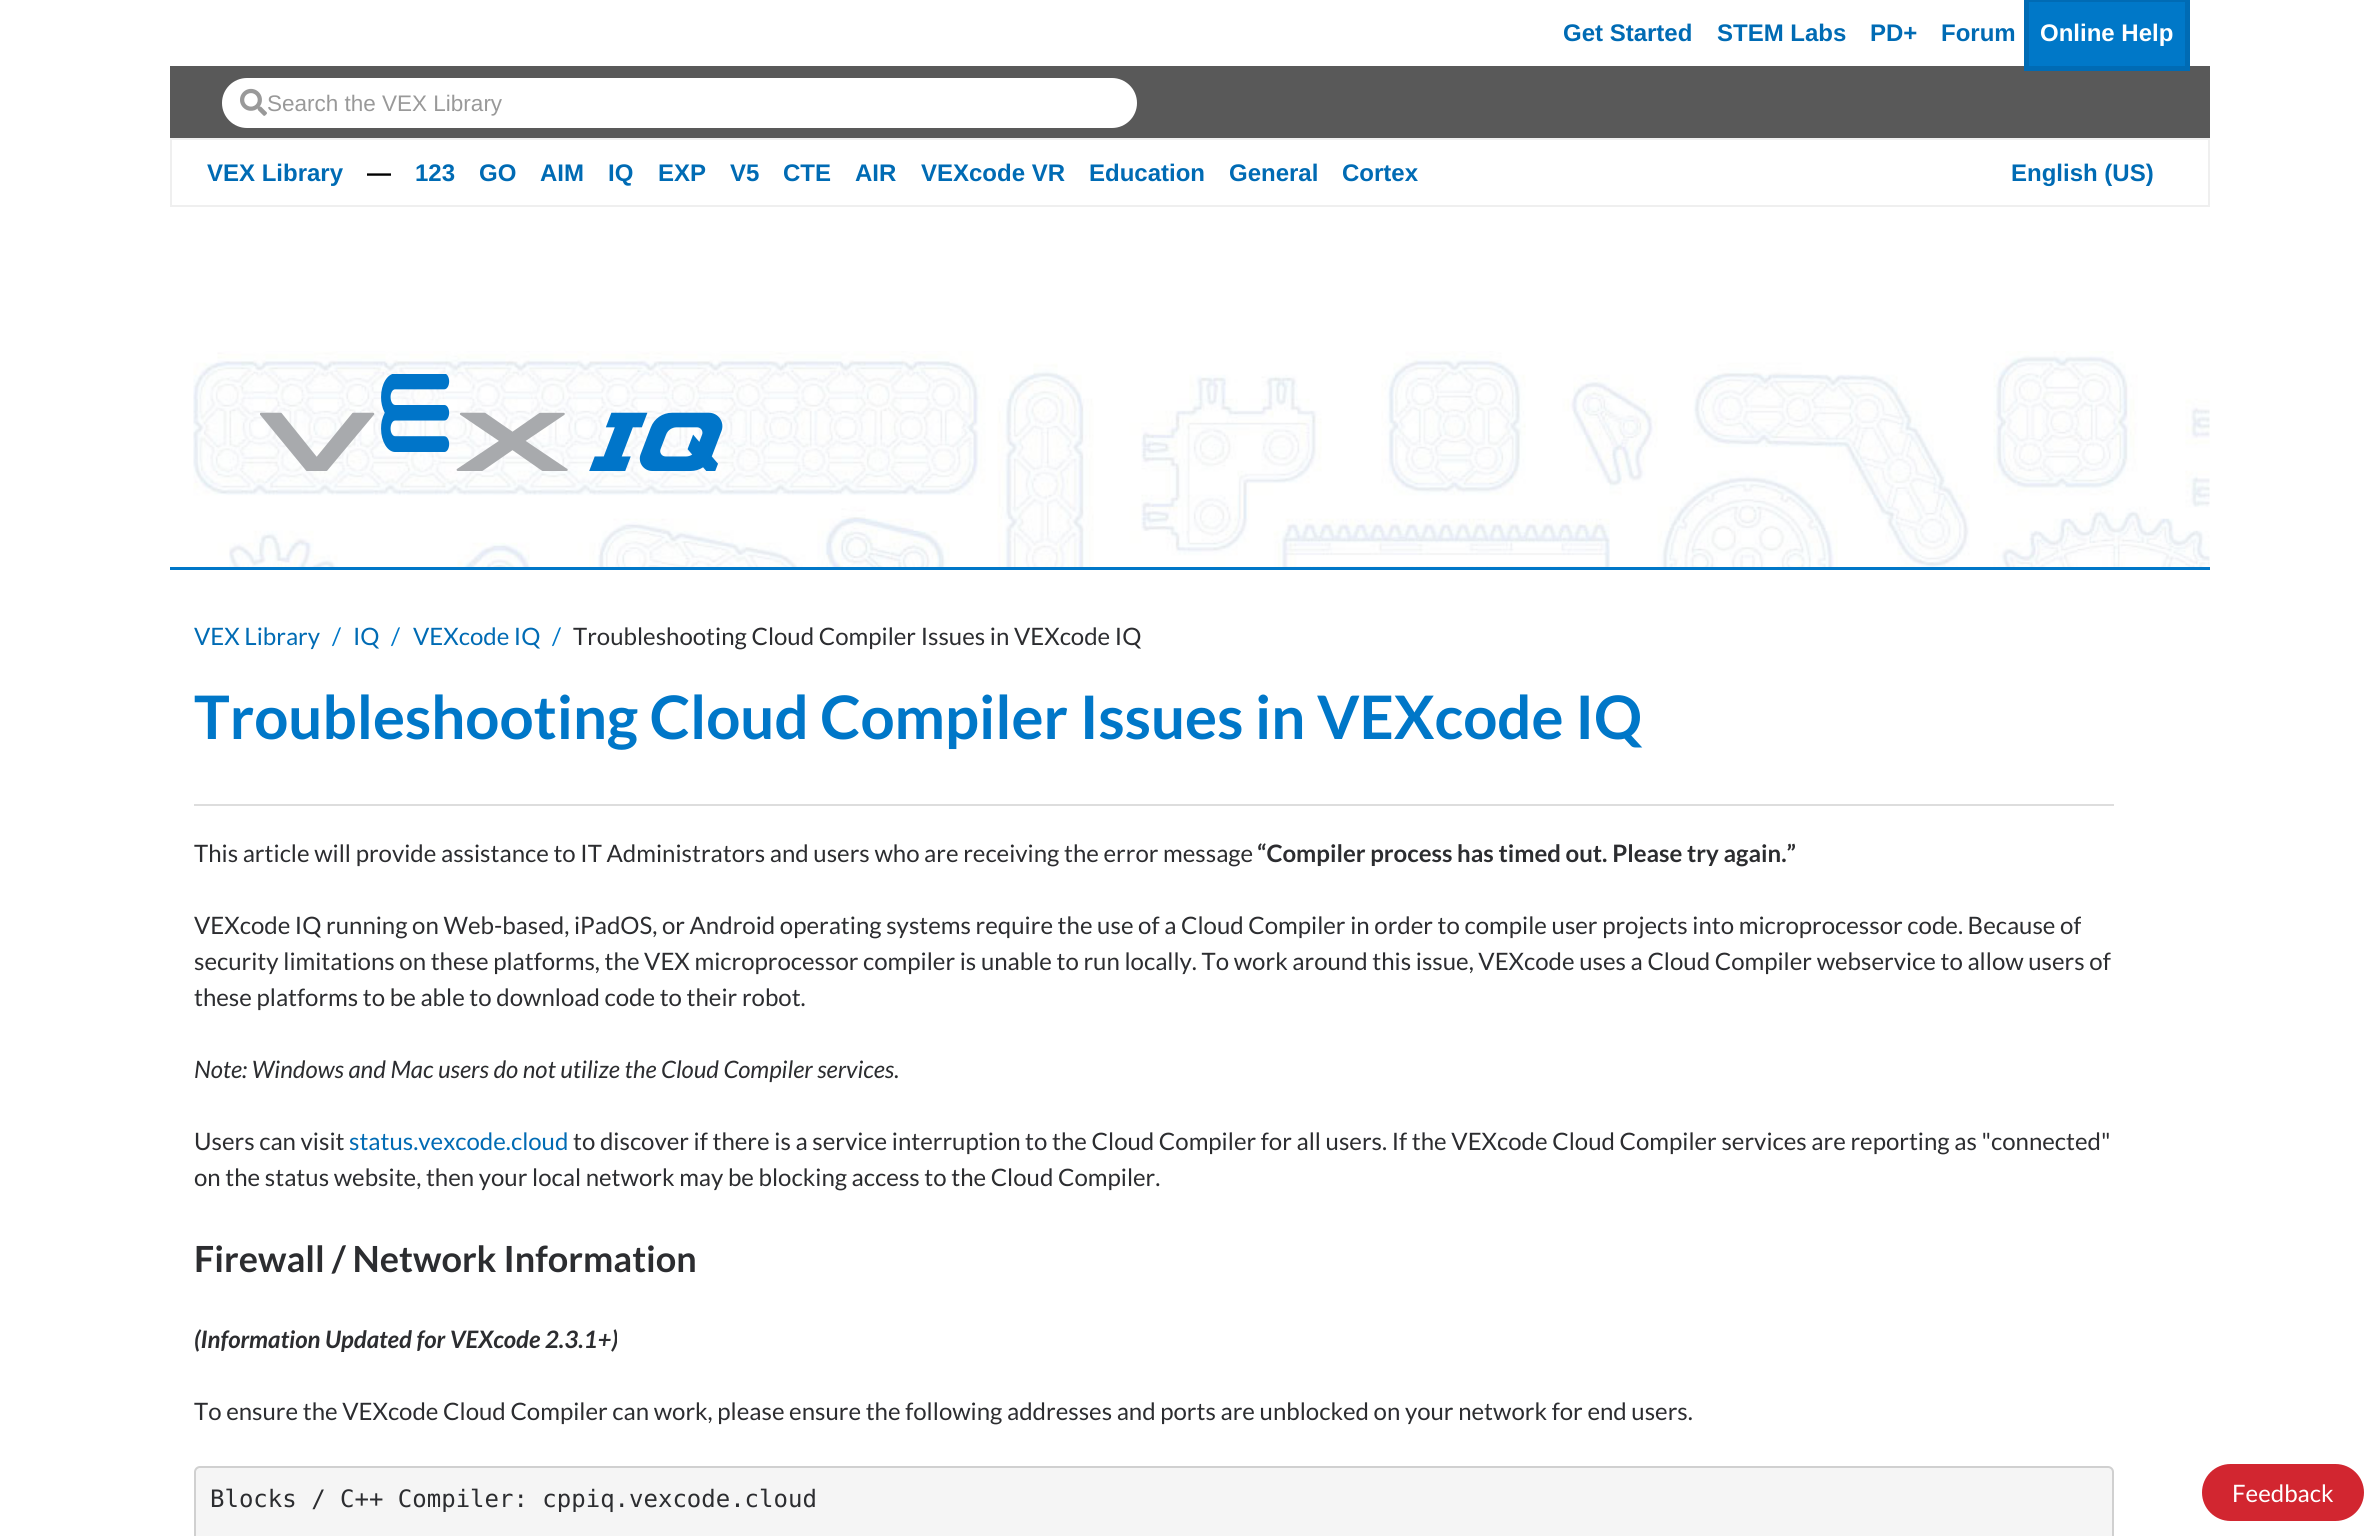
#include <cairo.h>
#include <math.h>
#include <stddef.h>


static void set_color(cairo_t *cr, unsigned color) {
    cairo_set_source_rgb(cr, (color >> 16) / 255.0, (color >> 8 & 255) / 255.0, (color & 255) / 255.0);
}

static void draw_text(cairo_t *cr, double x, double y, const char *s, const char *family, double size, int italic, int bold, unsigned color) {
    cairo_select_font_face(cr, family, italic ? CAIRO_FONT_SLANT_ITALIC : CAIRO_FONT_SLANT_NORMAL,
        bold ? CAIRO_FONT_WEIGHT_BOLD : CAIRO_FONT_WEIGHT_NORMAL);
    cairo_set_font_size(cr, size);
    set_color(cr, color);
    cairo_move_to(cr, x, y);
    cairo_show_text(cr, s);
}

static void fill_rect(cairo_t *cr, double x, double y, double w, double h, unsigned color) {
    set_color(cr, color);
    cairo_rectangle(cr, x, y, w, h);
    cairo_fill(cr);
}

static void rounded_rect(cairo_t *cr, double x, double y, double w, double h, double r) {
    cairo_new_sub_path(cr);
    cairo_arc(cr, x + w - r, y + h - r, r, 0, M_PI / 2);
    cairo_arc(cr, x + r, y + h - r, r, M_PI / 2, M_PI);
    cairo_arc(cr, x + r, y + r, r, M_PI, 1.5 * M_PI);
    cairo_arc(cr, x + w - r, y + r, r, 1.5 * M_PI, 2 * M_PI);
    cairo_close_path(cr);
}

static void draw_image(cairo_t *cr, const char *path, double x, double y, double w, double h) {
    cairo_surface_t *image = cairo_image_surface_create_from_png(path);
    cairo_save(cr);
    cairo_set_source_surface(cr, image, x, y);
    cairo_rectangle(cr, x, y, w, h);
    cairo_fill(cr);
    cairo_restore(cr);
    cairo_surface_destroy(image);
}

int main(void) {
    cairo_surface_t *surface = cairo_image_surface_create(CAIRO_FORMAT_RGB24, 2378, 1536);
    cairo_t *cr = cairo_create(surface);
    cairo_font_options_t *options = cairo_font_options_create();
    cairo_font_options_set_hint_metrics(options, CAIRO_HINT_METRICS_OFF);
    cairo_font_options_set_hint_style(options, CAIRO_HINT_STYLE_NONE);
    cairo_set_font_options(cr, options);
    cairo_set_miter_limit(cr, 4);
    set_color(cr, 0xFFFFFF);
    cairo_paint(cr);
    draw_text(cr, 1563, 41, "Get Started", "Liberation Sans", 24, 0, 1, 0x006BB4);
    draw_text(cr, 1717, 41, "STEM Labs", "Liberation Sans", 24, 0, 1, 0x006BB4);
    draw_text(cr, 1870, 41, "PD+", "Liberation Sans", 24, 0, 1, 0x006BB4);
    draw_text(cr, 1941, 41, "Forum", "Liberation Sans", 24, 0, 1, 0x006BB4);
    fill_rect(cr, 2029, 2, 156, 64, 0x0078C8);
    fill_rect(cr, 170, 66, 2040, 72, 0x595959);
    cairo_rectangle(cr, 2026.5, -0.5, 161, 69);
    set_color(cr, 0x006BB4);
    cairo_set_line_width(cr, 5);
    cairo_stroke(cr);
    draw_text(cr, 2040, 41, "Online Help", "Liberation Sans", 24, 0, 1, 0xFFFFFF);
    rounded_rect(cr, 222, 78, 915, 50, 25);
    cairo_fill(cr);
    draw_image(cr, "assets/img1.png", 240, 88, 27, 28);
    draw_text(cr, 267, 111, "Search the VEX Library", "Liberation Sans", 22.5, 0, 0, 0x999999);
    cairo_rectangle(cr, 171, 139, 2038, 67);
    set_color(cr, 0xEFEFEF);
    cairo_set_line_width(cr, 2);
    cairo_stroke(cr);
    draw_text(cr, 207, 181, "VEX Library", "Liberation Sans", 24, 0, 1, 0x006BB4);
    draw_text(cr, 367, 181, "―", "Liberation Sans", 24, 0, 1, 0x000000);
    draw_text(cr, 415, 181, "123", "Liberation Sans", 24, 0, 1, 0x006BB4);
    draw_text(cr, 479, 181, "GO", "Liberation Sans", 24, 0, 1, 0x006BB4);
    draw_text(cr, 540, 181, "AIM", "Liberation Sans", 24, 0, 1, 0x006BB4);
    draw_text(cr, 608, 181, "IQ", "Liberation Sans", 24, 0, 1, 0x006BB4);
    draw_text(cr, 658, 181, "EXP", "Liberation Sans", 24, 0, 1, 0x006BB4);
    draw_text(cr, 730, 181, "V5", "Liberation Sans", 24, 0, 1, 0x006BB4);
    draw_text(cr, 783, 181, "CTE", "Liberation Sans", 24, 0, 1, 0x006BB4);
    draw_text(cr, 855, 181, "AIR", "Liberation Sans", 24, 0, 1, 0x006BB4);
    draw_text(cr, 921, 181, "VEXcode VR", "Liberation Sans", 24, 0, 1, 0x006BB4);
    draw_text(cr, 1089, 181, "Education", "Liberation Sans", 24, 0, 1, 0x006BB4);
    draw_text(cr, 1229, 181, "General", "Liberation Sans", 24, 0, 1, 0x006BB4);
    draw_text(cr, 1342, 181, "Cortex", "Liberation Sans", 24, 0, 1, 0x006BB4);
    draw_text(cr, 2011, 181, "English (US)", "Liberation Sans", 24, 0, 1, 0x006BB4);
    draw_image(cr, "assets/img2.png", 193, 351, 2017, 216);
    fill_rect(cr, 170, 567, 2040, 3, 0x0077C8);
    draw_image(cr, "assets/img3.png", 260, 374, 463, 97);
    draw_text(cr, 194, 645, "VEX Library", "Lato", 24, 0, 0, 0x006BB4);
    draw_text(cr, 332, 645, "/", "Lato", 24, 0, 0, 0x0077C8);
    draw_text(cr, 353, 645, "IQ", "Lato", 24, 0, 0, 0x006BB4);
    draw_text(cr, 391, 645, "/", "Lato", 24, 0, 0, 0x0077C8);
    draw_text(cr, 413, 645, "VEXcode IQ", "Lato", 24, 0, 0, 0x006BB4);
    draw_text(cr, 552, 645, "/", "Lato", 24, 0, 0, 0x0077C8);
    draw_text(cr, 573, 645, "Troubleshooting Cloud Compiler Issues in VEXcode IQ", "Lato", 24, 0, 0, 0x2C2D30);
    draw_text(cr, 194, 739, "Troubleshooting Cloud Compiler Issues in VEXcode IQ", "Lato", 60, 0, 1, 0x0077C8);
    fill_rect(cr, 194, 804, 1920, 2, 0xDDDDDD);
    draw_text(cr, 194, 862, "This article will provide assistance to IT Administrators and users who are receiving the error message", "Lato", 24, 0, 0, 0x2C2D30);
    draw_text(cr, 1257, 862, "“Compiler process has timed out. Please try again.”", "Lato", 24, 0, 1, 0x2C2D30);
    draw_text(cr, 194, 934, "VEXcode IQ running on Web-based, iPadOS, or Android operating systems require the use of a Cloud Compiler in order to compile user projects into microprocessor code. Because of", "Lato", 24, 0, 0, 0x2C2D30);
    draw_text(cr, 194, 970, "security limitations on these platforms, the VEX microprocessor compiler is unable to run locally. To work around this issue, VEXcode uses a Cloud Compiler webservice to allow users of", "Lato", 24, 0, 0, 0x2C2D30);
    draw_text(cr, 194, 1006, "these platforms to be able to download code to their robot.", "Lato", 24, 0, 0, 0x2C2D30);
    draw_text(cr, 194, 1078, "Note: Windows and Mac users do not utilize the Cloud Compiler services.", "Lato", 24, 1, 0, 0x2C2D30);
    draw_text(cr, 194, 1150, "Users can visit", "Lato", 24, 0, 0, 0x2C2D30);
    draw_text(cr, 349, 1150, "status.vexcode.cloud", "Lato", 24, 0, 0, 0x006BB4);
    draw_text(cr, 573, 1150, "to discover if there is a service interruption to the Cloud Compiler for all users. If the VEXcode Cloud Compiler services are reporting as \"connected\"", "Lato", 24, 0, 0, 0x2C2D30);
    draw_text(cr, 194, 1186, "on the status website, then your local network may be blocking access to the Cloud Compiler.", "Lato", 24, 0, 0, 0x2C2D30);
    draw_text(cr, 194, 1272, "Firewall / Network Information", "Lato", 36, 0, 1, 0x2C2D30);
    draw_text(cr, 194, 1348, "(Information Updated for VEXcode 2.3.1+)", "Lato", 24, 1, 1, 0x2C2D30);
    draw_text(cr, 194, 1420, "To ensure the VEXcode Cloud Compiler can work, please ensure the following addresses and ports are unblocked on your network for end users.", "Lato", 24, 0, 0, 0x2C2D30);
    set_color(cr, 0xF5F5F5);
    rounded_rect(cr, 195, 1467, 1918, 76, 5);
    cairo_fill_preserve(cr);
    set_color(cr, 0xD0D0D0);
    cairo_stroke(cr);
    draw_text(cr, 210, 1507, "Blocks / C++ Compiler: cppiq.vexcode.cloud", "DejaVu Sans Mono", 24, 0, 0, 0x2C2D30);
    set_color(cr, 0xD22630);
    rounded_rect(cr, 2202, 1464, 162, 57, 28.5);
    cairo_fill(cr);
    draw_text(cr, 2232, 1502, "Feedback", "Lato", 24, 0, 0, 0xFFFFFF);
    cairo_surface_write_to_png(surface, "output.png");
    cairo_font_options_destroy(options);
    cairo_destroy(cr);
    cairo_surface_destroy(surface);
    return 0;
}
